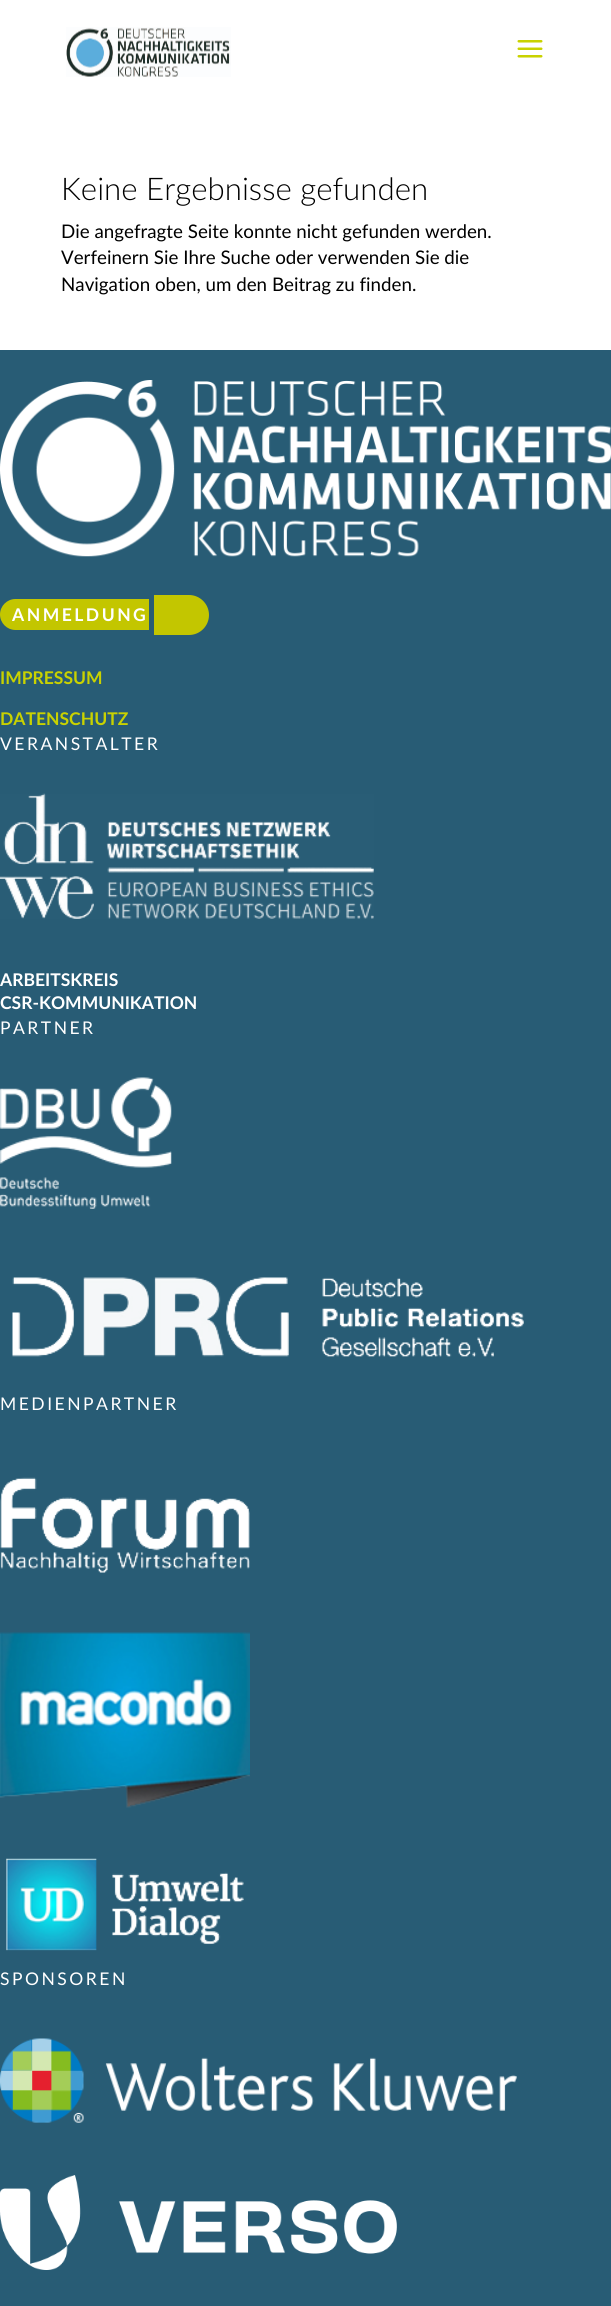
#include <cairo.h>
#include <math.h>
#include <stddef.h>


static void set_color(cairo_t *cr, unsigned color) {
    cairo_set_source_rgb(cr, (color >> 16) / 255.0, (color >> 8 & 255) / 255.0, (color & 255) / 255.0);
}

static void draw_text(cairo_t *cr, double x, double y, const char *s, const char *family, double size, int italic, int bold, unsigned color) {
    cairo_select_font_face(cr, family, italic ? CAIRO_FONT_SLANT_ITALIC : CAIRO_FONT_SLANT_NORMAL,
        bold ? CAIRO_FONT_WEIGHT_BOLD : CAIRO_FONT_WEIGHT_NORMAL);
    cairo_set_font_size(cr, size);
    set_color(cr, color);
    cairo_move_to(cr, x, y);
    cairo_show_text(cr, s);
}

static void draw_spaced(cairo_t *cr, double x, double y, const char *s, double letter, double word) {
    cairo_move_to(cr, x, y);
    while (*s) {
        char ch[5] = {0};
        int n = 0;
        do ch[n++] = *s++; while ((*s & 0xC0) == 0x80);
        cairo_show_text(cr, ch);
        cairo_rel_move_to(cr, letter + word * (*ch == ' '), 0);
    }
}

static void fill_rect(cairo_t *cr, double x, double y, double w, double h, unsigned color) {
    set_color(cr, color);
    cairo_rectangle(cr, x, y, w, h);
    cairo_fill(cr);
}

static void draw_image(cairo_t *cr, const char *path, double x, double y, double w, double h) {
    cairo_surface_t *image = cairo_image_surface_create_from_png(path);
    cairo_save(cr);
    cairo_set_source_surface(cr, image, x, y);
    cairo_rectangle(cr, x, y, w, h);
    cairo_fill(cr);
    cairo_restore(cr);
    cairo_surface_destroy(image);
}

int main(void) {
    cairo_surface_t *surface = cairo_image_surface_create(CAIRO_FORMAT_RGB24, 611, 2306);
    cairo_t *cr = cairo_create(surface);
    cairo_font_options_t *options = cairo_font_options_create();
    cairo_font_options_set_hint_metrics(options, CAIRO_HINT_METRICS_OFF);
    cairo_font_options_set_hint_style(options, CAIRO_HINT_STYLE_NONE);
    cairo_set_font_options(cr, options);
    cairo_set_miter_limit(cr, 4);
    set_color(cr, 0xFFFFFF);
    cairo_paint(cr);
    draw_image(cr, "assets/img1.png", 66, 27, 165, 50);
    draw_image(cr, "assets/img2.png", 517, 40, 26, 18);
    draw_text(cr, 61, 200, "Keine Ergebnisse gefunden", "Lato Light", 31.25, 0, 0, 0x000000);
    draw_text(cr, 61, 238, "Die angefragte Seite konnte nicht gefunden werden.", "Lato", 18.75, 0, 0, 0x000000);
    draw_text(cr, 61, 264, "Verfeinern Sie Ihre Suche oder verwenden Sie die", "Lato", 18.75, 0, 0, 0x000000);
    draw_text(cr, 61, 291, "Navigation oben, um den Beitrag zu finden.", "Lato", 18.75, 0, 0, 0x000000);
    fill_rect(cr, 0, 350, 611, 1956, 0x285C75);
    draw_image(cr, "assets/img3.png", 0, 380, 611, 177);
    set_color(cr, 0xC3C600);
    cairo_new_path(cr);
    cairo_move_to(cr, 15.5, 599);
    cairo_line_to(cr, 149, 599);
    cairo_line_to(cr, 149, 630);
    cairo_line_to(cr, 15.5, 630);
    cairo_curve_to(cr, 7, 630, 0, 623, 0, 614.5);
    cairo_curve_to(cr, 0, 606, 7, 599, 15.5, 599);
    cairo_close_path(cr);
    cairo_fill(cr);
    cairo_select_font_face(cr, "Lato", CAIRO_FONT_SLANT_NORMAL, CAIRO_FONT_WEIGHT_BOLD);
    cairo_set_font_size(cr, 17.5);
    set_color(cr, 0xFFFFFF);
    draw_spaced(cr, 12, 621, "ANMELDUNG", 2.5, 0);
    set_color(cr, 0xC3C600);
    cairo_new_path(cr);
    cairo_move_to(cr, 154, 595);
    cairo_line_to(cr, 189, 595);
    cairo_curve_to(cr, 200, 595, 209, 604, 209, 615);
    cairo_curve_to(cr, 209, 626, 200, 635, 189, 635);
    cairo_line_to(cr, 154, 635);
    cairo_close_path(cr);
    cairo_fill(cr);
    draw_text(cr, 0, 684, "IMPRESSUM", "Lato", 17.5, 0, 1, 0xC9D200);
    draw_text(cr, 0, 725, "DATENSCHUTZ", "Lato", 17.5, 0, 1, 0xC9D200);
    cairo_select_font_face(cr, "Lato", CAIRO_FONT_SLANT_NORMAL, CAIRO_FONT_WEIGHT_NORMAL);
    set_color(cr, 0xFFFFFF);
    draw_spaced(cr, 0, 750, "VERANSTALTER", 2.5, 0);
    draw_image(cr, "assets/img4.png", 0, 793, 374, 126);
    draw_text(cr, 0, 986, "ARBEITSKREIS", "Lato", 17.5, 0, 1, 0xFFFFFF);
    draw_text(cr, 0, 1009, "CSR-KOMMUNIKATION", "Lato", 17.5, 0, 1, 0xFFFFFF);
    cairo_select_font_face(cr, "Lato", CAIRO_FONT_SLANT_NORMAL, CAIRO_FONT_WEIGHT_NORMAL);
    draw_spaced(cr, 0, 1034, "PARTNER", 2.5, 0);
    draw_image(cr, "assets/img5.png", 0, 1077, 172, 132);
    draw_image(cr, "assets/img6.png", 12, 1277, 512, 80);
    draw_spaced(cr, 0, 1410, "MEDIENPARTNER", 2.5, 0);
    draw_image(cr, "assets/img7.png", 0, 1477, 250, 96);
    draw_image(cr, "assets/img8.png", 0, 1632, 250, 176);
    draw_image(cr, "assets/img9.png", 6, 1858, 238, 93);
    draw_spaced(cr, 0, 1985, "SPONSOREN", 2.5, 0);
    draw_image(cr, "assets/img10.png", 0, 2038, 517, 85);
    draw_image(cr, "assets/img11.png", 0, 2175, 397, 95);
    cairo_surface_write_to_png(surface, "output.png");
    cairo_font_options_destroy(options);
    cairo_destroy(cr);
    cairo_surface_destroy(surface);
    return 0;
}
